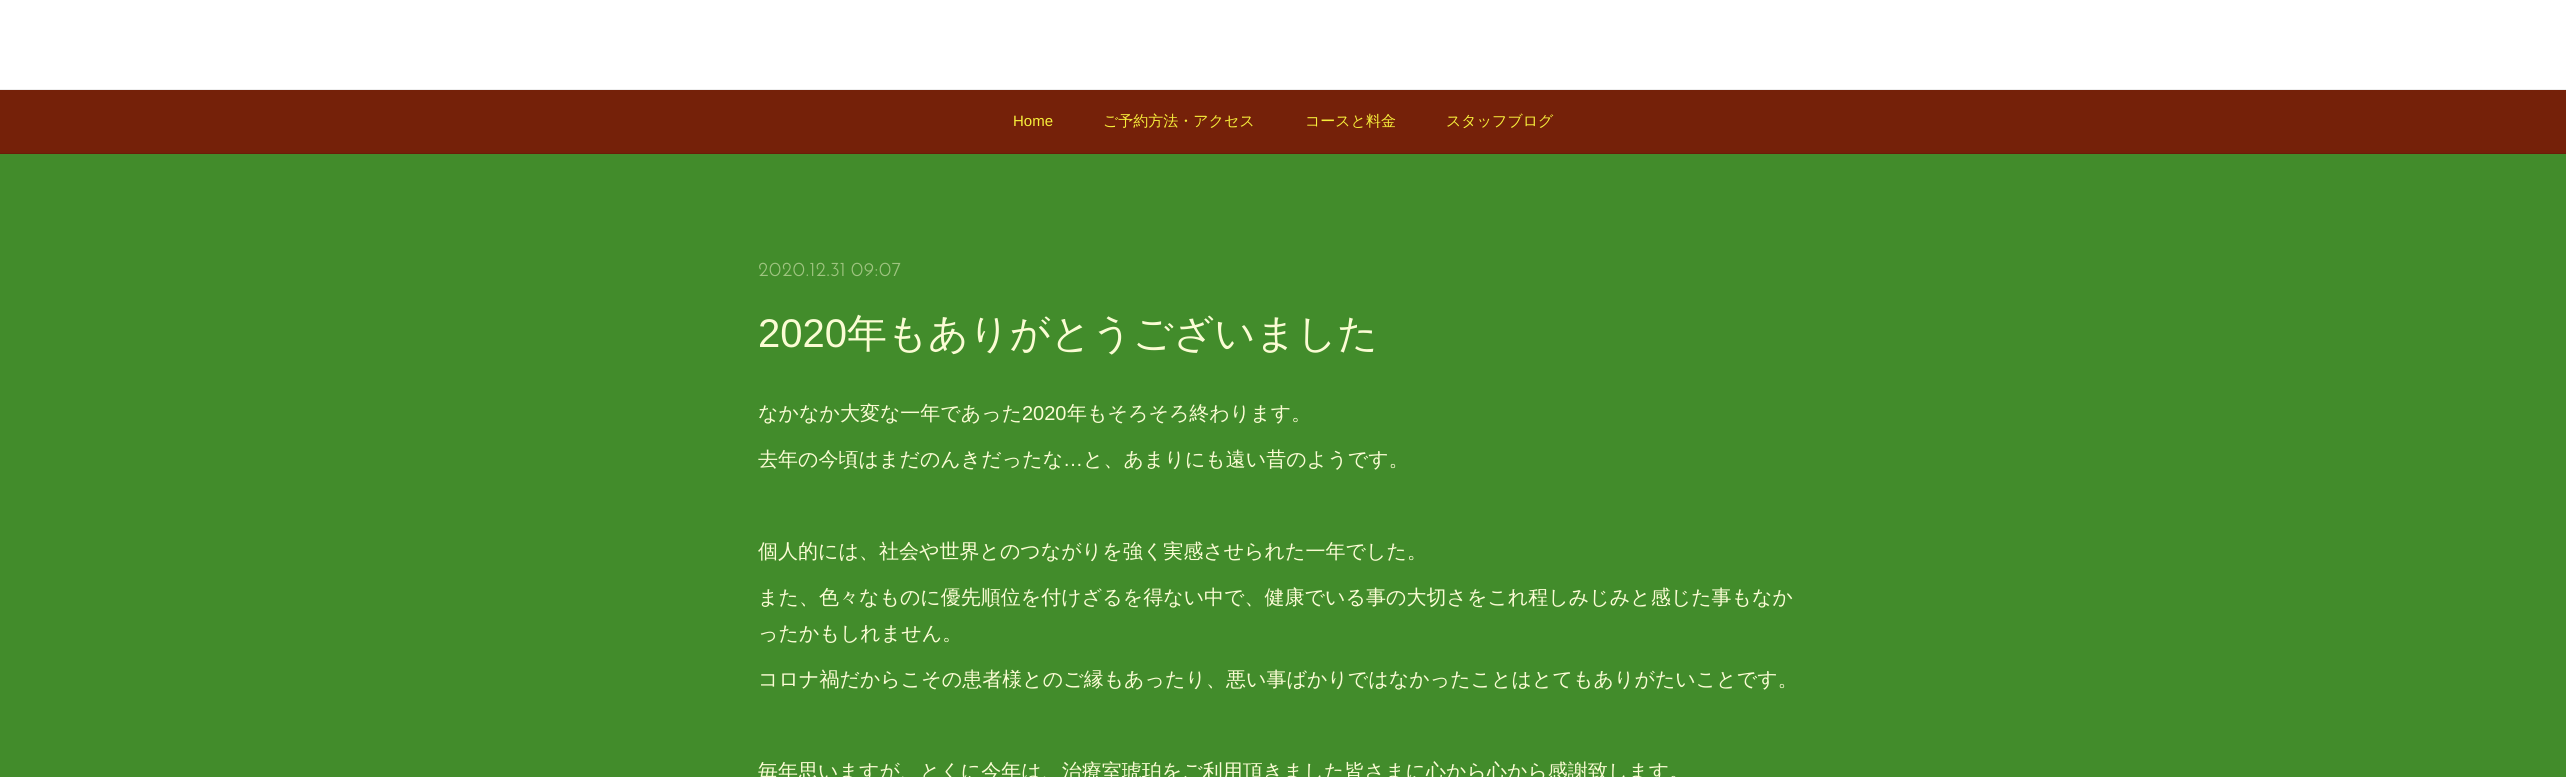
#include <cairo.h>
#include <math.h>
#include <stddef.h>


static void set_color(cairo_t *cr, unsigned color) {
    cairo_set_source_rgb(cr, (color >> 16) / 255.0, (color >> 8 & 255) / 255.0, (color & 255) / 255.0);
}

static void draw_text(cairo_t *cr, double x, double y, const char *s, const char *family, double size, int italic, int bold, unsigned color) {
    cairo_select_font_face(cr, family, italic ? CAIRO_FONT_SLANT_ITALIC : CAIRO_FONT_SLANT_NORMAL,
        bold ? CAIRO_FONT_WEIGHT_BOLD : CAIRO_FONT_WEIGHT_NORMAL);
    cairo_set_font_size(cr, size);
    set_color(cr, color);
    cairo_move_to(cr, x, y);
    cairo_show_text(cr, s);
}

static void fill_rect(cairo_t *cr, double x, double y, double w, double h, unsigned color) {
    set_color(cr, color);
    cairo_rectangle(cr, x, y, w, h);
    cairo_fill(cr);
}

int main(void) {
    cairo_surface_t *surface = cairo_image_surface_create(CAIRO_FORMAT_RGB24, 2566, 777);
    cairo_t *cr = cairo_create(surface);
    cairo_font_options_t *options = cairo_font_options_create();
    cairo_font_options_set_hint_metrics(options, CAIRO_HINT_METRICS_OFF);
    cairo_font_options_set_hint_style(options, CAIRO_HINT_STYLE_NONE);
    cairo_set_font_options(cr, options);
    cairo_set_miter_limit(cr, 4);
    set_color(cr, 0x428C2B);
    cairo_paint(cr);
    fill_rect(cr, 0, 0, 2566, 89, 0xFFFFFF);
    fill_rect(cr, 0, 89, 2566, 1, 0xEEEEEE);
    fill_rect(cr, 0, 90, 2566, 63, 0x752109);
    fill_rect(cr, 0, 153, 2566, 1, 0x691E08);
    draw_text(cr, 1013, 126, "Home", "Liberation Sans", 15, 0, 0, 0xF7EE3B);
    draw_text(cr, 1103, 126, "ご予約方法・アクセス", "WenQuanYi Zen Hei Medium", 15, 0, 0, 0xF7EE3B);
    draw_text(cr, 1305, 126, "コースと料金", "WenQuanYi Zen Hei Medium", 15, 0, 0, 0xF7EE3B);
    draw_text(cr, 1446, 126, "スタッフブログ", "WenQuanYi Zen Hei Medium", 15, 0, 0, 0xF7EE3B);
    draw_text(cr, 758, 276, "2020.12.31 09:07", "Josefin Sans", 20, 0, 0, 0x9FC480);
    draw_text(cr, 758, 347, "2020", "Liberation Sans", 40, 0, 0, 0xFBFCD4);
    draw_text(cr, 847, 347, "年もありがとうございました", "WenQuanYi Zen Hei Medium", 40, 0, 0, 0xFBFCD4);
    draw_text(cr, 758, 420, "なかなか大変な一年であった", "WenQuanYi Zen Hei Medium", 20, 0, 0, 0xFBFCD4);
    draw_text(cr, 1022, 420, "2020", "Liberation Sans", 20, 0, 0, 0xFBFCD4);
    draw_text(cr, 1067, 420, "年もそろそろ終わります。", "WenQuanYi Zen Hei Medium", 20, 0, 0, 0xFBFCD4);
    draw_text(cr, 758, 466, "去年の今頃はまだのんきだったな", "WenQuanYi Zen Hei Medium", 20, 0, 0, 0xFBFCD4);
    draw_text(cr, 1063, 466, "…", "Liberation Sans", 20, 0, 0, 0xFBFCD4);
    draw_text(cr, 1083, 466, "と、あまりにも遠い昔のようです。", "WenQuanYi Zen Hei Medium", 20, 0, 0, 0xFBFCD4);
    draw_text(cr, 758, 558, "個人的には、社会や世界とのつながりを強く実感させられた一年でした。", "WenQuanYi Zen Hei Medium", 20, 0, 0, 0xFBFCD4);
    draw_text(cr, 758, 604, "また、色々なものに優先順位を付けざるを得ない中で、健康でいる事の大切さをこれ程しみじみと感じた事もなか", "WenQuanYi Zen Hei Medium", 20, 0, 0, 0xFBFCD4);
    draw_text(cr, 758, 640, "ったかもしれません。", "WenQuanYi Zen Hei Medium", 20, 0, 0, 0xFBFCD4);
    draw_text(cr, 758, 686, "コロナ禍だからこその患者様とのご縁もあったり、悪い事ばかりではなかったことはとてもありがたいことです。", "WenQuanYi Zen Hei Medium", 20, 0, 0, 0xFBFCD4);
    draw_text(cr, 758, 778, "毎年思いますが、とくに今年は、治療室琥珀をご利用頂きました皆さまに心から心から感謝致します。", "WenQuanYi Zen Hei Medium", 20, 0, 0, 0xFBFCD4);
    cairo_surface_write_to_png(surface, "output.png");
    cairo_font_options_destroy(options);
    cairo_destroy(cr);
    cairo_surface_destroy(surface);
    return 0;
}
